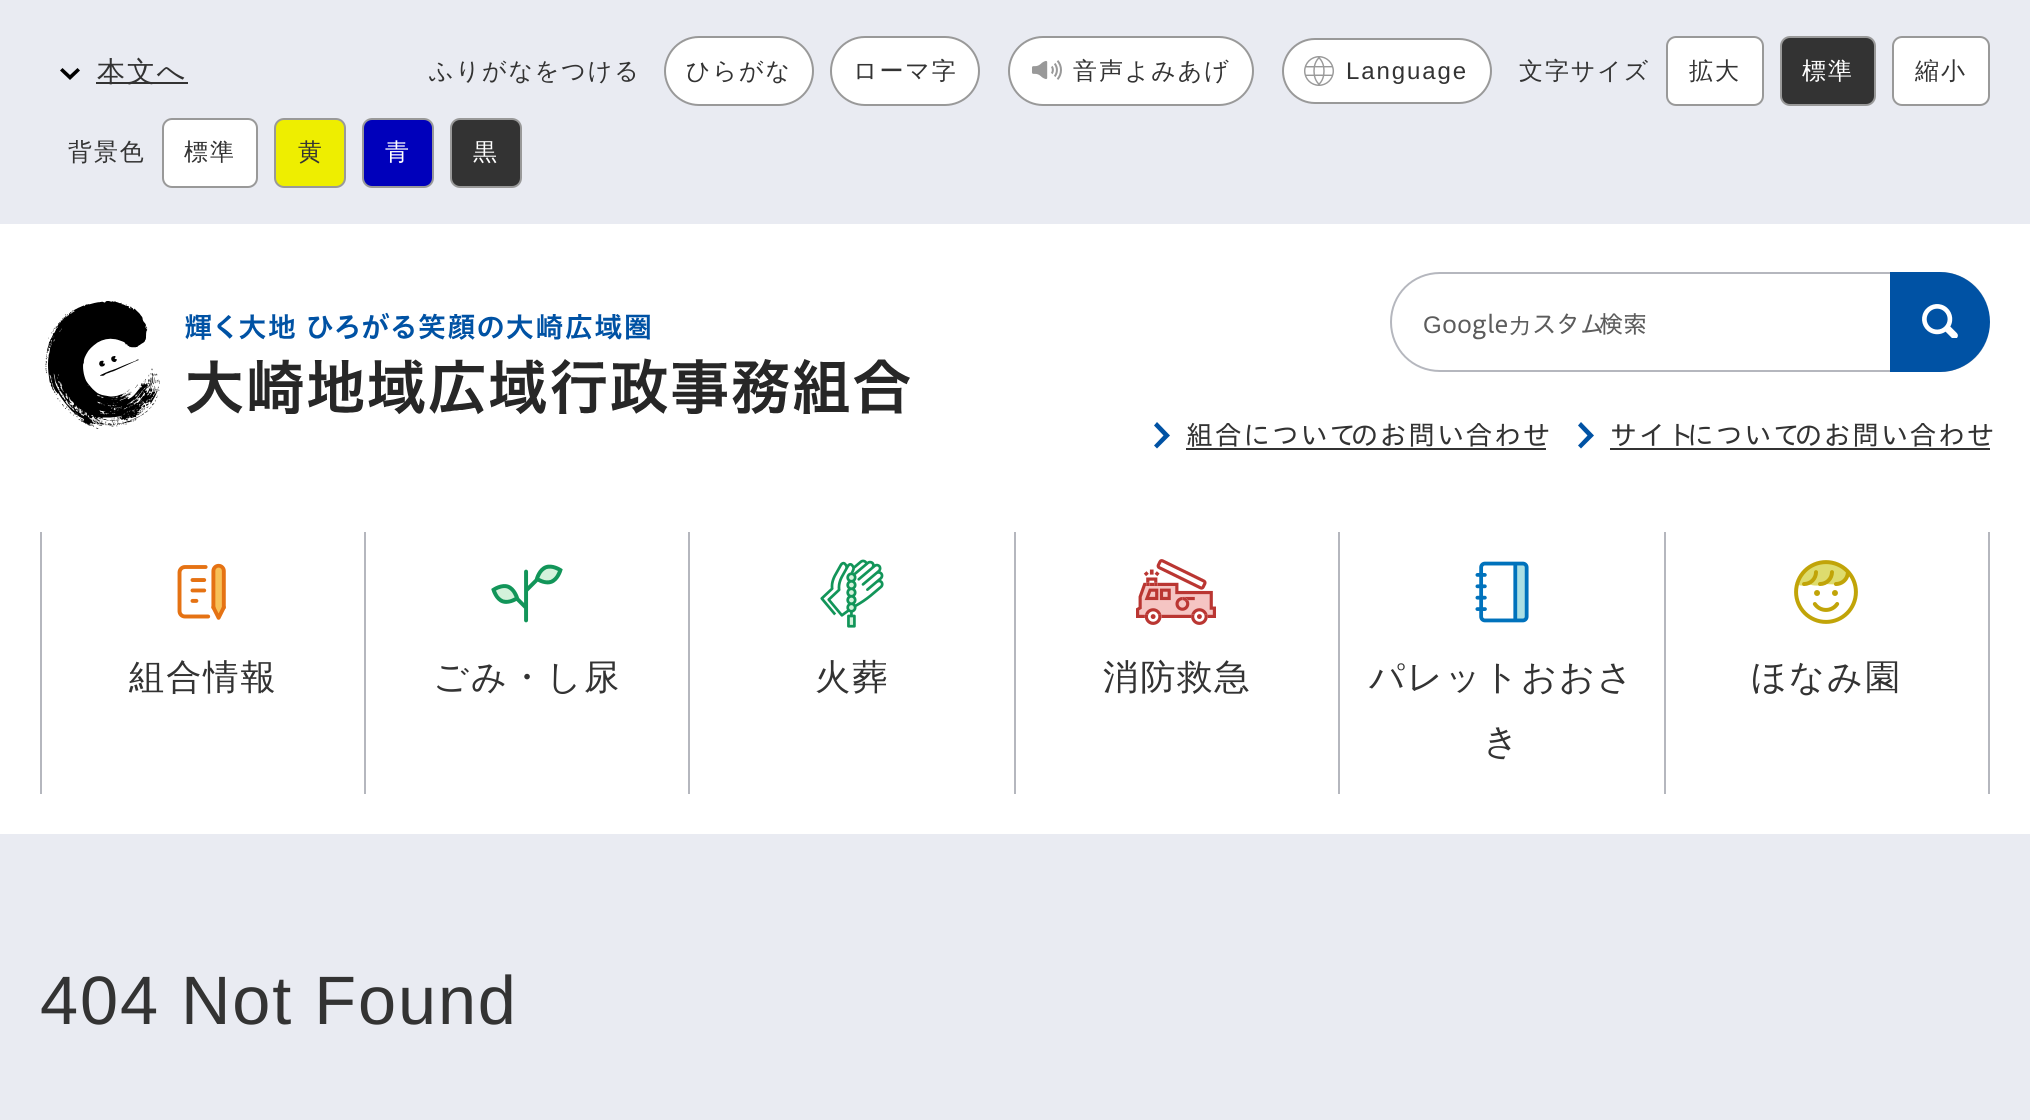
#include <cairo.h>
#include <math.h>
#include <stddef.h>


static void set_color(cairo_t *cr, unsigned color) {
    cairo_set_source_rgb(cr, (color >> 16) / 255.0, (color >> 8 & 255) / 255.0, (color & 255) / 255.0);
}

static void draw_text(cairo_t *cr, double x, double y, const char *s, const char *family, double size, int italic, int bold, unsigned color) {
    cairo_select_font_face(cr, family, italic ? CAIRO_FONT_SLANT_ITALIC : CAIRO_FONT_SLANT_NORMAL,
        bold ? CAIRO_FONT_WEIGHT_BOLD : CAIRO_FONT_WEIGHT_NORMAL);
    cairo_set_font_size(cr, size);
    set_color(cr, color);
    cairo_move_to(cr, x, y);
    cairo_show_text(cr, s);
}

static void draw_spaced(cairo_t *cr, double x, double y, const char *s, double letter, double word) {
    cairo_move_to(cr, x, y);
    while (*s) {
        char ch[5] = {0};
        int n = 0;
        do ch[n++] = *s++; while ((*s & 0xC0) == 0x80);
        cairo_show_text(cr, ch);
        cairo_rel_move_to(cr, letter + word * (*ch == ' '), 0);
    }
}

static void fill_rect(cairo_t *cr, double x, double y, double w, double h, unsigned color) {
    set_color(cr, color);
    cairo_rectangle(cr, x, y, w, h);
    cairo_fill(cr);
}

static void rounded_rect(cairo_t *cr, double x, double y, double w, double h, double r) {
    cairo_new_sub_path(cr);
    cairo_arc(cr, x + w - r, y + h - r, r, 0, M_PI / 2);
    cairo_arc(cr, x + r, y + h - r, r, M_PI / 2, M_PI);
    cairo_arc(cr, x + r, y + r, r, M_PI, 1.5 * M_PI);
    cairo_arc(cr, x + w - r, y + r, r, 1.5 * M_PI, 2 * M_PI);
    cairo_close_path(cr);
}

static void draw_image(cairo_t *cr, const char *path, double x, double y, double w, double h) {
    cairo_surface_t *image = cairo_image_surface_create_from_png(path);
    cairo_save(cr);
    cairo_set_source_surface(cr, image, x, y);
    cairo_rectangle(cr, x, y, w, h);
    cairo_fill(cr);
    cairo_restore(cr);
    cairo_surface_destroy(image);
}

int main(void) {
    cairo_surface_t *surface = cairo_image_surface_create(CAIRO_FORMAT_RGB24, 2030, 1120);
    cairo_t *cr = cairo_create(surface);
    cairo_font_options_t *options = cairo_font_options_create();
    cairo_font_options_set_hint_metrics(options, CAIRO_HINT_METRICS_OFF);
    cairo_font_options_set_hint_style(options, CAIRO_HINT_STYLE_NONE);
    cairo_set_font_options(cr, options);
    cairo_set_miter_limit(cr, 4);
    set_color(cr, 0xFFFFFF);
    cairo_paint(cr);
    fill_rect(cr, 0, 0, 2030, 224, 0xE9EBF2);
    set_color(cr, 0x000000);
    cairo_new_path(cr);
    cairo_move_to(cr, 60, 70.5);
    cairo_line_to(cr, 62.5, 68);
    cairo_line_to(cr, 70, 75);
    cairo_line_to(cr, 77.5, 68);
    cairo_line_to(cr, 80, 70.5);
    cairo_line_to(cr, 70, 80);
    cairo_close_path(cr);
    cairo_fill(cr);
    fill_rect(cr, 96, 82, 92, 2, 0x333333);
    cairo_select_font_face(cr, "WenQuanYi Zen Hei Medium", CAIRO_FONT_SLANT_NORMAL, CAIRO_FONT_WEIGHT_NORMAL);
    cairo_set_font_size(cr, 28);
    draw_spaced(cr, 97, 81, "本文へ", 1.9, 0);
    cairo_set_font_size(cr, 24);
    draw_spaced(cr, 429, 79, "ふりがなをつける", 1.9, 0);
    set_color(cr, 0xFFFFFF);
    rounded_rect(cr, 665, 37, 148, 68, 34);
    cairo_fill_preserve(cr);
    set_color(cr, 0x999999);
    cairo_stroke(cr);
    set_color(cr, 0x333333);
    draw_spaced(cr, 686, 79, "ひらがな", 1.9, 0);
    set_color(cr, 0xFFFFFF);
    rounded_rect(cr, 831, 37, 148, 68, 34);
    cairo_fill_preserve(cr);
    set_color(cr, 0x999999);
    cairo_stroke(cr);
    set_color(cr, 0x333333);
    draw_spaced(cr, 853, 79, "ローマ字", 1.9, 0);
    set_color(cr, 0xFFFFFF);
    rounded_rect(cr, 1009, 37, 244, 68, 34);
    cairo_fill_preserve(cr);
    set_color(cr, 0x999999);
    cairo_stroke(cr);
    draw_image(cr, "assets/img1.png", 1032, 60, 30, 20);
    set_color(cr, 0x333333);
    draw_spaced(cr, 1073, 79, "音声よみあげ", 1.9, 0);
    set_color(cr, 0xFFFFFF);
    rounded_rect(cr, 1283, 39, 208, 64, 32);
    cairo_fill_preserve(cr);
    set_color(cr, 0x999999);
    cairo_stroke(cr);
    draw_image(cr, "assets/img2.png", 1304, 56, 30, 30);
    cairo_select_font_face(cr, "Liberation Sans", CAIRO_FONT_SLANT_NORMAL, CAIRO_FONT_WEIGHT_NORMAL);
    set_color(cr, 0x333333);
    draw_spaced(cr, 1346, 79, "Language", 1.9, 0);
    cairo_select_font_face(cr, "WenQuanYi Zen Hei Medium", CAIRO_FONT_SLANT_NORMAL, CAIRO_FONT_WEIGHT_NORMAL);
    draw_spaced(cr, 1519, 79, "文字サイズ", 1.9, 0);
    set_color(cr, 0xFFFFFF);
    rounded_rect(cr, 1667, 37, 96, 68, 9);
    cairo_fill_preserve(cr);
    set_color(cr, 0x999999);
    cairo_stroke(cr);
    set_color(cr, 0x333333);
    draw_spaced(cr, 1689, 79, "拡大", 1.9, 0);
    rounded_rect(cr, 1781, 37, 94, 68, 9);
    cairo_fill_preserve(cr);
    set_color(cr, 0x999999);
    cairo_stroke(cr);
    set_color(cr, 0xFFFFFF);
    draw_spaced(cr, 1802, 79, "標準", 1.9, 0);
    rounded_rect(cr, 1893, 37, 96, 68, 9);
    cairo_fill_preserve(cr);
    set_color(cr, 0x999999);
    cairo_stroke(cr);
    set_color(cr, 0x333333);
    draw_spaced(cr, 1915, 79, "縮小", 1.9, 0);
    draw_spaced(cr, 68, 160, "背景色", 1.9, 0);
    set_color(cr, 0xFFFFFF);
    rounded_rect(cr, 163, 119, 94, 68, 9);
    cairo_fill_preserve(cr);
    set_color(cr, 0x999999);
    cairo_stroke(cr);
    set_color(cr, 0x333333);
    draw_spaced(cr, 184, 160, "標準", 1.9, 0);
    set_color(cr, 0xEEEE00);
    rounded_rect(cr, 275, 119, 70, 68, 9);
    cairo_fill_preserve(cr);
    set_color(cr, 0x999999);
    cairo_stroke(cr);
    set_color(cr, 0x333333);
    draw_spaced(cr, 298, 160, "黄", 1.9, 0);
    set_color(cr, 0x0000BB);
    rounded_rect(cr, 363, 119, 70, 68, 9);
    cairo_fill_preserve(cr);
    set_color(cr, 0x999999);
    cairo_stroke(cr);
    set_color(cr, 0xFFFFFF);
    draw_spaced(cr, 385, 160, "青", 1.9, 0);
    set_color(cr, 0x333333);
    rounded_rect(cr, 451, 119, 70, 68, 9);
    cairo_fill_preserve(cr);
    set_color(cr, 0x999999);
    cairo_stroke(cr);
    set_color(cr, 0xFFFFFF);
    draw_spaced(cr, 473, 160, "黒", 1.9, 0);
    draw_image(cr, "assets/img3.png", 45, 301, 865, 128);
    set_color(cr, 0xB5B7BE);
    cairo_set_fill_rule(cr, CAIRO_FILL_RULE_EVEN_ODD);
    cairo_new_path(cr);
    cairo_move_to(cr, 1440, 272);
    cairo_line_to(cr, 1940, 272);
    cairo_curve_to(cr, 1968, 272, 1990, 294, 1990, 322);
    cairo_curve_to(cr, 1990, 350, 1968, 372, 1940, 372);
    cairo_line_to(cr, 1440, 372);
    cairo_curve_to(cr, 1412, 372, 1390, 350, 1390, 322);
    cairo_curve_to(cr, 1390, 294, 1412, 272, 1440, 272);
    cairo_close_path(cr);
    cairo_move_to(cr, 1440, 274);
    cairo_line_to(cr, 1940, 274);
    cairo_curve_to(cr, 1968, 274, 1990, 295, 1990, 322);
    cairo_curve_to(cr, 1990, 349, 1968, 370, 1940, 370);
    cairo_line_to(cr, 1440, 370);
    cairo_curve_to(cr, 1413, 370, 1392, 349, 1392, 322);
    cairo_curve_to(cr, 1392, 295, 1413, 274, 1440, 274);
    cairo_close_path(cr);
    cairo_fill(cr);
    draw_text(cr, 1423, 333, "G", "Liberation Sans", 24, 0, 0, 0x5C5C5C);
    draw_text(cr, 1442, 333, "oogle", "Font", 24, 0, 0, 0x5C5C5C);
    draw_text(cr, 1508, 333, "カ", "WenQuanYi Zen Hei Medium", 24, 0, 0, 0x5C5C5C);
    draw_text(cr, 1532, 333, "スタム", "Font", 24, 0, 0, 0x5C5C5C);
    draw_text(cr, 1599, 333, "検索", "Font", 24, 0, 0, 0x5C5C5C);
    set_color(cr, 0x0052A4);
    cairo_new_path(cr);
    cairo_move_to(cr, 1890, 272);
    cairo_line_to(cr, 1940, 272);
    cairo_curve_to(cr, 1967.5, 272, 1990, 294.5, 1990, 322);
    cairo_curve_to(cr, 1990, 349.5, 1967.5, 372, 1940, 372);
    cairo_line_to(cr, 1890, 372);
    cairo_close_path(cr);
    cairo_fill(cr);
    draw_image(cr, "assets/img4.png", 1922, 304, 36, 34);
    cairo_set_fill_rule(cr, CAIRO_FILL_RULE_WINDING);
    cairo_new_path(cr);
    cairo_move_to(cr, 1157, 448.5);
    cairo_line_to(cr, 1154, 445.5);
    cairo_line_to(cr, 1163.5, 435.5);
    cairo_line_to(cr, 1154, 425.5);
    cairo_line_to(cr, 1157, 422);
    cairo_line_to(cr, 1170, 435.5);
    cairo_close_path(cr);
    cairo_fill(cr);
    cairo_set_font_size(cr, 26.75);
    set_color(cr, 0x333333);
    draw_spaced(cr, 1186, 445, "組合について", 1.9, 0);
    draw_spaced(cr, 1351, 445, "のお問い合わせ", 1.9, 0);
    fill_rect(cr, 1186, 448, 360, 2, 0x333333);
    set_color(cr, 0x0052A4);
    cairo_new_path(cr);
    cairo_move_to(cr, 1581, 448.5);
    cairo_line_to(cr, 1578, 445.5);
    cairo_line_to(cr, 1587.5, 435.5);
    cairo_line_to(cr, 1578, 425.5);
    cairo_line_to(cr, 1581, 422);
    cairo_line_to(cr, 1594, 435.5);
    cairo_close_path(cr);
    cairo_fill(cr);
    set_color(cr, 0x333333);
    draw_spaced(cr, 1610, 445, "サイト", 1.9, 0);
    draw_spaced(cr, 1687, 445, "について", 1.9, 0);
    draw_spaced(cr, 1795, 445, "のお問い合わせ", 1.9, 0);
    fill_rect(cr, 1610, 448, 380, 2, 0x333333);
    fill_rect(cr, 364, 532, 2, 262, 0xB5B7BE);
    fill_rect(cr, 40, 532, 2, 262, 0xB5B7BE);
    draw_image(cr, "assets/img5.png", 177, 563, 49, 57);
    cairo_select_font_face(cr, "WenQuanYi Zen Hei Medium", CAIRO_FONT_SLANT_NORMAL, CAIRO_FONT_WEIGHT_NORMAL);
    cairo_set_font_size(cr, 35.25);
    set_color(cr, 0x333333);
    draw_spaced(cr, 129, 689, "組合情報", 1.9, 0);
    fill_rect(cr, 688, 532, 2, 262, 0xB5B7BE);
    draw_image(cr, "assets/img6.png", 491, 564, 72, 59);
    set_color(cr, 0x333333);
    draw_spaced(cr, 433, 689, "ごみ・し尿", 1.9, 0);
    fill_rect(cr, 1014, 532, 2, 262, 0xB5B7BE);
    draw_image(cr, "assets/img7.png", 820, 559, 64, 69);
    set_color(cr, 0x333333);
    draw_spaced(cr, 815, 689, "火葬", 1.9, 0);
    fill_rect(cr, 1338, 532, 2, 262, 0xB5B7BE);
    draw_image(cr, "assets/img8.png", 1136, 559, 80, 66);
    set_color(cr, 0x333333);
    draw_spaced(cr, 1103, 689, "消防救急", 1.9, 0);
    fill_rect(cr, 1664, 532, 2, 262, 0xB5B7BE);
    draw_image(cr, "assets/img9.png", 1475, 561, 54, 62);
    set_color(cr, 0x333333);
    draw_spaced(cr, 1369, 689, "パレットおおさ", 1.9, 0);
    draw_spaced(cr, 1483, 753, "き", 1.9, 0);
    fill_rect(cr, 1988, 532, 2, 262, 0xB5B7BE);
    draw_image(cr, "assets/img10.png", 1794, 560, 64, 64);
    set_color(cr, 0x333333);
    draw_spaced(cr, 1751, 689, "ほなみ園", 1.9, 0);
    fill_rect(cr, 0, 834, 2030, 286, 0xE9EBF2);
    cairo_select_font_face(cr, "Liberation Sans", CAIRO_FONT_SLANT_NORMAL, CAIRO_FONT_WEIGHT_NORMAL);
    cairo_set_font_size(cr, 68.5);
    set_color(cr, 0x333333);
    draw_spaced(cr, 40, 1024, "404 Not Found", 1.9, 0);
    cairo_surface_write_to_png(surface, "output.png");
    cairo_font_options_destroy(options);
    cairo_destroy(cr);
    cairo_surface_destroy(surface);
    return 0;
}
